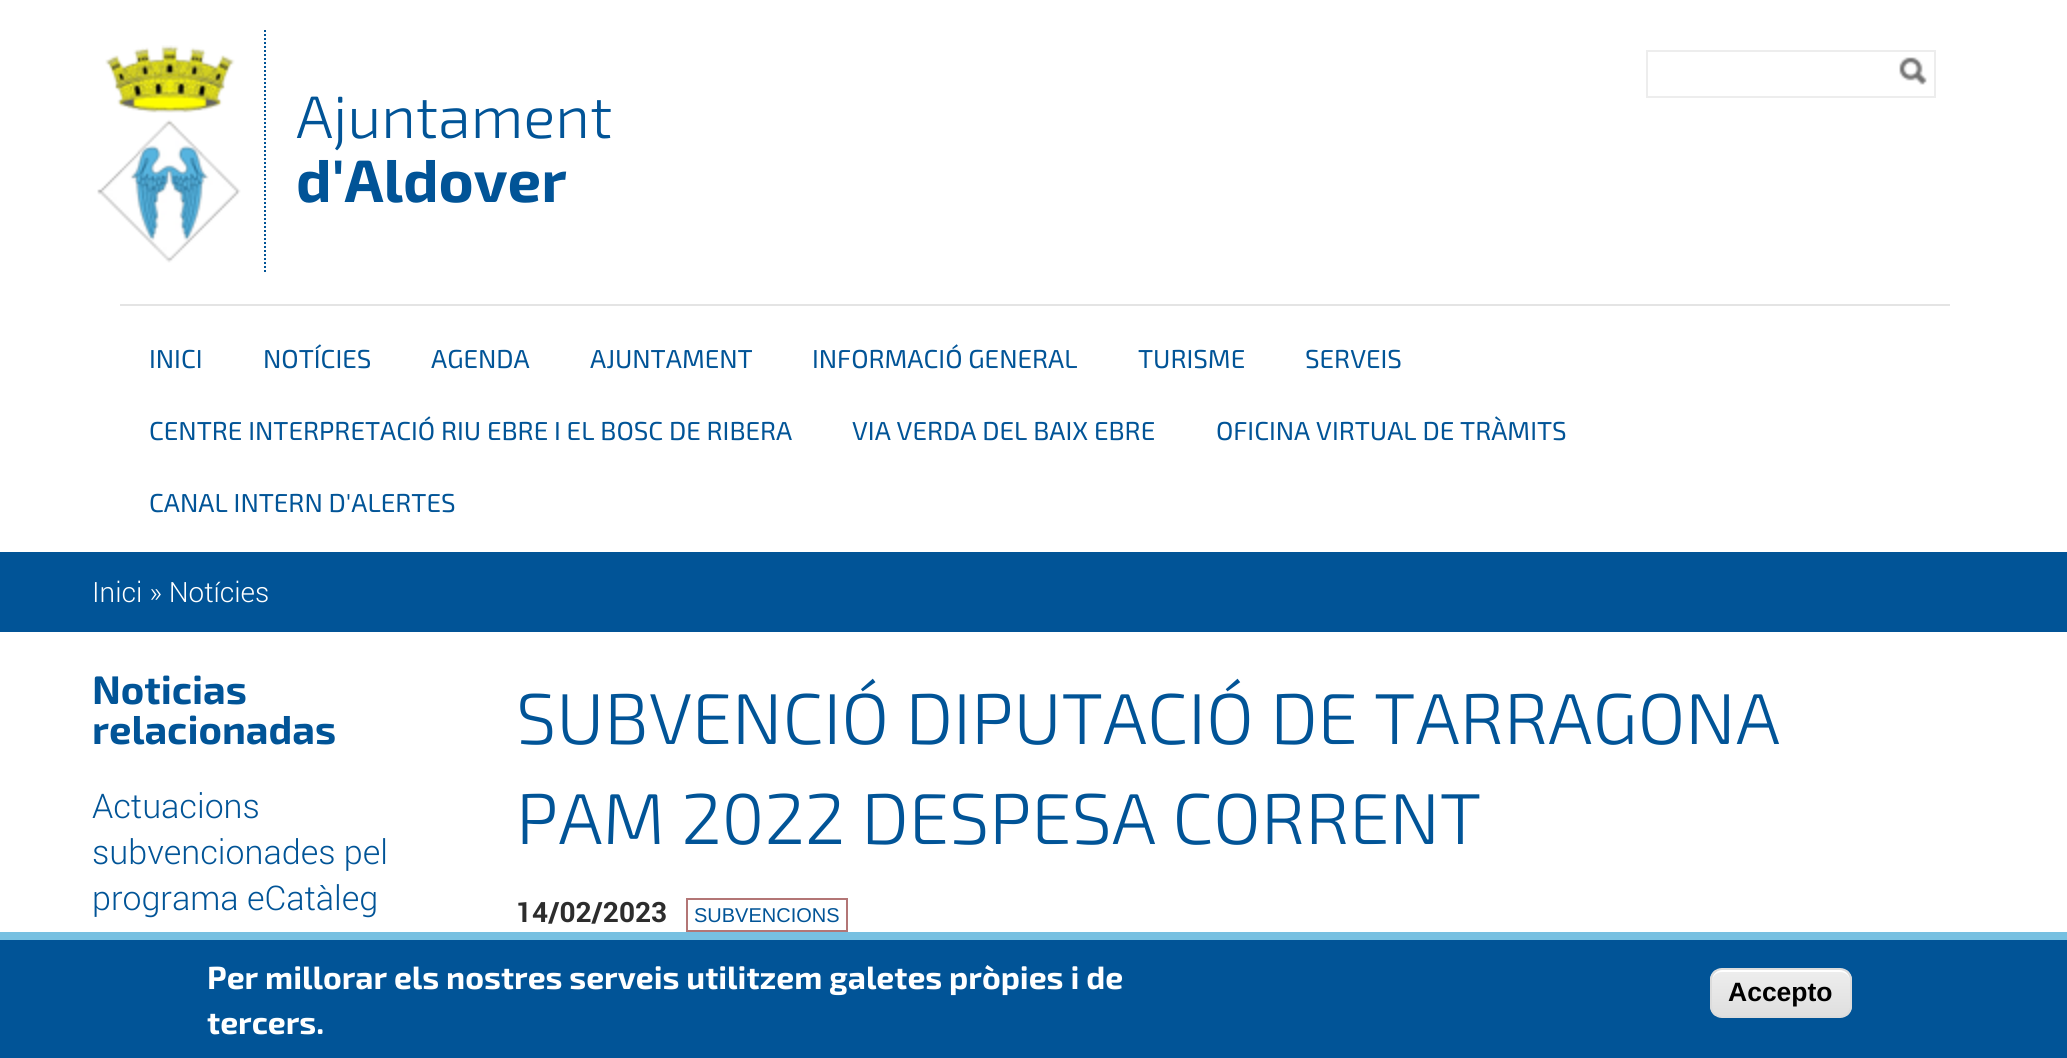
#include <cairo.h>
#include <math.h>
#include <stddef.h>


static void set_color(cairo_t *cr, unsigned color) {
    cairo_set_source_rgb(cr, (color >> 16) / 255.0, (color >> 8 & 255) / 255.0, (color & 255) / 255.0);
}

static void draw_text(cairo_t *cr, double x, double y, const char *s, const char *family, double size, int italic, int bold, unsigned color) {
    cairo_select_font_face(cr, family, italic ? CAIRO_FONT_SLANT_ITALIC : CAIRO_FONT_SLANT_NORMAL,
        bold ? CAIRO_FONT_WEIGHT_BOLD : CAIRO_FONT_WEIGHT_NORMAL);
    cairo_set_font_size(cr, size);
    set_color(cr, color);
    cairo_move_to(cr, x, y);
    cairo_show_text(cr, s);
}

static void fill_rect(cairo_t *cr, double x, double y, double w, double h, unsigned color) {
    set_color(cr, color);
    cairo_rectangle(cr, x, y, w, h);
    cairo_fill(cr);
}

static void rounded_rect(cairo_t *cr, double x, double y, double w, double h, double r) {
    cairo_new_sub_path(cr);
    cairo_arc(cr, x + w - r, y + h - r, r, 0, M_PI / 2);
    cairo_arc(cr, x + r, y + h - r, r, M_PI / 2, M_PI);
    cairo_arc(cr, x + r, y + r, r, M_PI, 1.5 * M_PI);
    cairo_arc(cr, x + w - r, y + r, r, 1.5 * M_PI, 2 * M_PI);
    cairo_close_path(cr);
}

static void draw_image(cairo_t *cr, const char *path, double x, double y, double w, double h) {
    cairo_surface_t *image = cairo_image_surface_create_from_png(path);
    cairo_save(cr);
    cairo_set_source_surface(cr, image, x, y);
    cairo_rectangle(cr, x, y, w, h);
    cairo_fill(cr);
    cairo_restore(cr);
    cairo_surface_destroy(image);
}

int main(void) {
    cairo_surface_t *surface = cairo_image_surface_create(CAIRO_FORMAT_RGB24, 2067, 1058);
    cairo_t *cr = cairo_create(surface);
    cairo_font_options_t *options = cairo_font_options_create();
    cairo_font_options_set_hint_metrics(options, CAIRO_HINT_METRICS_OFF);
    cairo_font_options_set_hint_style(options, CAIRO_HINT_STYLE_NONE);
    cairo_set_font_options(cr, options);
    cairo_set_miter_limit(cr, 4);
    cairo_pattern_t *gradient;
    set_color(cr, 0xFFFFFF);
    cairo_paint(cr);
    cairo_rectangle(cr, 1647, 51, 288, 46);
    set_color(cr, 0xEDEDED);
    cairo_stroke(cr);
    draw_image(cr, "assets/img1.png", 1899, 57, 28, 28);
    draw_image(cr, "assets/img2.png", 97, 45, 144, 218);
    cairo_new_path(cr);
    cairo_move_to(cr, 265, 30);
    cairo_line_to(cr, 265, 274);
    set_color(cr, 0x015497);
    cairo_set_dash(cr, (double[]){2, 2}, 2, 0);
    cairo_stroke(cr);
    draw_text(cr, 296, 138, "Ajuntament", "Exo 2 Light", 60, 0, 0, 0x015497);
    draw_text(cr, 296, 202, "d'Aldover", "Exo 2", 60, 0, 1, 0x015497);
    fill_rect(cr, 120, 304, 1830, 2, 0xE4E4E4);
    draw_text(cr, 149, 368, "INICI", "Exo 2", 26, 0, 0, 0x015497);
    draw_text(cr, 263, 368, "NOTÍCIES", "Exo 2", 26, 0, 0, 0x015497);
    draw_text(cr, 431, 368, "AGENDA", "Exo 2", 26, 0, 0, 0x015497);
    draw_text(cr, 590, 368, "AJUNTAMENT", "Exo 2", 26, 0, 0, 0x015497);
    draw_text(cr, 812, 368, "INFORMACIÓ GENERAL", "Exo 2", 26, 0, 0, 0x015497);
    draw_text(cr, 1138, 368, "TURISME", "Exo 2", 26, 0, 0, 0x015497);
    draw_text(cr, 1305, 368, "SERVEIS", "Exo 2", 26, 0, 0, 0x015497);
    draw_text(cr, 149, 440, "CENTRE INTERPRETACIÓ RIU EBRE I EL BOSC DE RIBERA", "Exo 2", 26, 0, 0, 0x015497);
    draw_text(cr, 852, 440, "VIA VERDA DEL BAIX EBRE", "Exo 2", 26, 0, 0, 0x015497);
    draw_text(cr, 1216, 440, "OFICINA VIRTUAL DE TRÀMITS", "Exo 2", 26, 0, 0, 0x015497);
    draw_text(cr, 149, 512, "CANAL INTERN D'ALERTES", "Exo 2", 26, 0, 0, 0x015497);
    fill_rect(cr, 0, 552, 2067, 80, 0x015497);
    draw_text(cr, 92, 602, "Inici » Notícies", "Roboto Light", 28, 0, 0, 0xFFFFFF);
    draw_text(cr, 92, 704, "Noticias", "Exo 2", 40, 0, 1, 0x015497);
    draw_text(cr, 92, 744, "relacionadas", "Exo 2", 40, 0, 1, 0x015497);
    draw_text(cr, 92, 818, "Actuacions", "Roboto Light", 34, 0, 0, 0x015497);
    draw_text(cr, 92, 864, "subvencionades pel", "Roboto Light", 34, 0, 0, 0x015497);
    draw_text(cr, 92, 910, "programa eCatàleg", "Roboto Light", 34, 0, 0, 0x015497);
    draw_text(cr, 516, 744, "SUBVENCIÓ DIPUTACIÓ DE TARRAGONA", "Exo 2 Light", 72, 0, 0, 0x015497);
    draw_text(cr, 516, 844, "PAM 2022 DESPESA CORRENT", "Exo 2 Light", 72, 0, 0, 0x015497);
    draw_text(cr, 516, 922, "14/02/2023", "Roboto", 28, 0, 1, 0x2D2D2D);
    cairo_rectangle(cr, 687, 899, 160, 32);
    set_color(cr, 0xB37676);
    cairo_set_dash(cr, NULL, 0, 0);
    cairo_stroke(cr);
    draw_text(cr, 694, 922, "SUBVENCIONS", "Liberation Sans", 20, 0, 0, 0x015497);
    fill_rect(cr, 0, 940, 2067, 118, 0x015497);
    fill_rect(cr, 0, 932, 2067, 8, 0x77C0E1);
    draw_text(cr, 207, 989, "Per millorar els nostres serveis utilitzem galetes pròpies i de", "Exo 2", 32, 0, 1, 0xFFFFFF);
    draw_text(cr, 207, 1034, "tercers.", "Exo 2", 32, 0, 1, 0xFFFFFF);
    cairo_save(cr);
    rounded_rect(cr, 1710, 968, 142, 50, 12);
    cairo_clip(cr);
    gradient = cairo_pattern_create_linear(1781, 970, 1781, 1016);
    cairo_pattern_add_color_stop_rgba(gradient, 0.05, 0.929, 0.929, 0.929, 1);
    cairo_pattern_add_color_stop_rgba(gradient, 1, 0.875, 0.875, 0.875, 1);
    cairo_set_source(cr, gradient);
    cairo_pattern_destroy(gradient);
    cairo_rectangle(cr, 1710, 970, 142, 46);
    cairo_fill(cr);
    cairo_restore(cr);
    cairo_new_path(cr);
    cairo_move_to(cr, 1722, 972);
    cairo_line_to(cr, 1840, 972);
    cairo_curve_to(cr, 1846, 972, 1850, 976, 1850, 982);
    cairo_curve_to(cr, 1850, 965, 1832, 970, 1820, 970);
    cairo_line_to(cr, 1742, 970);
    cairo_curve_to(cr, 1730, 970, 1712, 965, 1712, 982);
    cairo_curve_to(cr, 1712, 976, 1716, 972, 1722, 972);
    cairo_close_path(cr);
    cairo_fill(cr);
    rounded_rect(cr, 1711, 969, 140, 48, 11);
    set_color(cr, 0xDCDCDC);
    cairo_stroke(cr);
    draw_text(cr, 1728, 1001, "Accepto", "Liberation Sans", 26.5, 0, 1, 0x000000);
    cairo_surface_write_to_png(surface, "output.png");
    cairo_font_options_destroy(options);
    cairo_destroy(cr);
    cairo_surface_destroy(surface);
    return 0;
}
